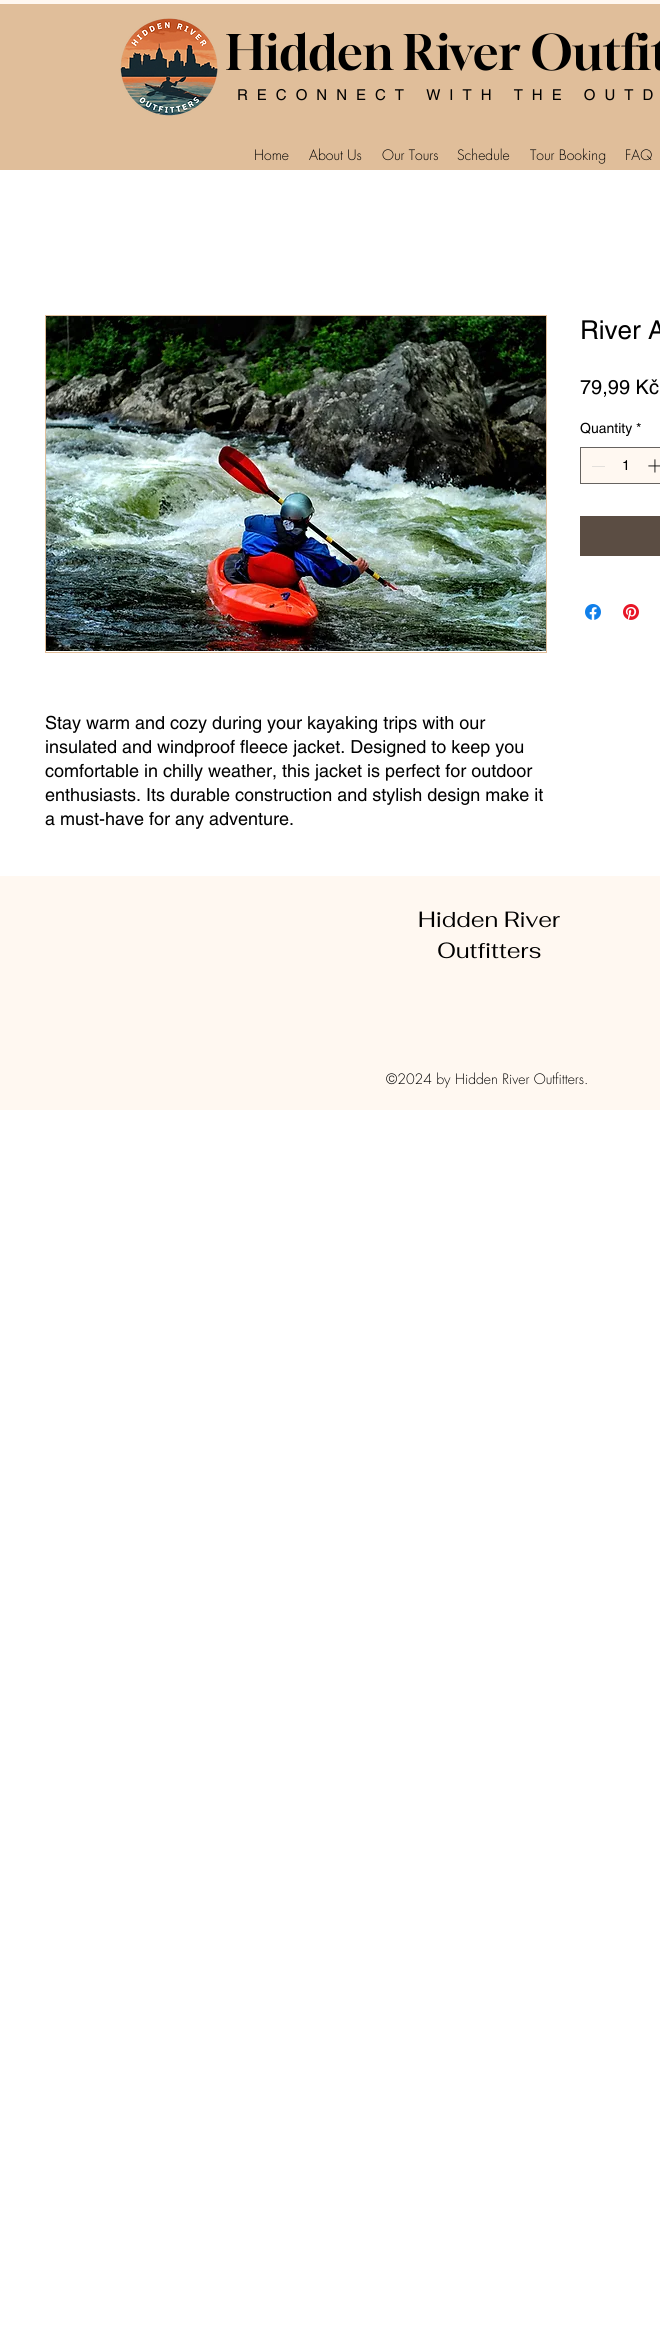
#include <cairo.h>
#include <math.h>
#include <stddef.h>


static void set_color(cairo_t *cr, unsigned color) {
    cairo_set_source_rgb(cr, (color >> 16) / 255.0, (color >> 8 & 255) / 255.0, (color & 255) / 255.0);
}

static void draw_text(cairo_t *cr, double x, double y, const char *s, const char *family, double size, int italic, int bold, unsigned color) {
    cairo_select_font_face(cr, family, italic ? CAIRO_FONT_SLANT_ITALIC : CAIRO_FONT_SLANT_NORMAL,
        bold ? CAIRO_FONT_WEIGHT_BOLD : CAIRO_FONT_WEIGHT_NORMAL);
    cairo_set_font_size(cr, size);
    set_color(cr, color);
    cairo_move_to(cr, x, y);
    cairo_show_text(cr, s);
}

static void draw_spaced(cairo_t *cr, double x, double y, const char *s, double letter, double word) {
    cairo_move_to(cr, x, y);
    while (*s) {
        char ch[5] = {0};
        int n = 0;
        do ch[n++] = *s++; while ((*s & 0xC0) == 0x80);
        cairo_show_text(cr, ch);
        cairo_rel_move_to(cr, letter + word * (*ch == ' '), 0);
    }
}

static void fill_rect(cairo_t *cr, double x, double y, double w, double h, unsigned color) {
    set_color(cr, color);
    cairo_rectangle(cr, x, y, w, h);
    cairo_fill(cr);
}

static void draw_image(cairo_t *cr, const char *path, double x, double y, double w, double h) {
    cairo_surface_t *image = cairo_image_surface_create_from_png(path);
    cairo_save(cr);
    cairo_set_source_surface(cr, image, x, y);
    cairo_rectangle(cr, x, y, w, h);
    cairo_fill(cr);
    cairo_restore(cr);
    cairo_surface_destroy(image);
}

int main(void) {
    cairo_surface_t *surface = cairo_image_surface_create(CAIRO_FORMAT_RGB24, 660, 2352);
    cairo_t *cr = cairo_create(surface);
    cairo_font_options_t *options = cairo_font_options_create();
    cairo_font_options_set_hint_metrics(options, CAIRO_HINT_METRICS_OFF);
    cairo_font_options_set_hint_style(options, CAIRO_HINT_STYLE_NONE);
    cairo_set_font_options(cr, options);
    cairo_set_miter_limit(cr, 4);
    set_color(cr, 0xFFFFFF);
    cairo_paint(cr);
    fill_rect(cr, 0, 0, 660, 4, 0xFFF8F1);
    fill_rect(cr, 0, 4, 660, 166, 0xE0BE9A);
    draw_image(cr, "assets/img1.png", 120, 18, 98, 98);
    draw_text(cr, 226, 70, "Hidden River Outfit", "Gloock", 48, 0, 0, 0x000000);
    cairo_select_font_face(cr, "helvetica", CAIRO_FONT_SLANT_NORMAL, CAIRO_FONT_WEIGHT_NORMAL);
    cairo_set_font_size(cr, 15);
    draw_spaced(cr, 237, 100, "RECONNECT WITH THE OUTD", 9, 0);
    draw_text(cr, 254, 160, "Home", "futura Light", 14, 0, 0, 0x000000);
    draw_text(cr, 309, 160, "About Us", "futura Light", 14, 0, 0, 0x000000);
    draw_text(cr, 382, 160, "Our Tours", "futura Light", 14, 0, 0, 0x000000);
    draw_text(cr, 457, 160, "Schedule", "futura Light", 14, 0, 0, 0x000000);
    draw_text(cr, 530, 160, "Tour Booking", "futura Light", 14, 0, 0, 0x000000);
    draw_text(cr, 625, 160, "FAQ", "futura Light", 14, 0, 0, 0x000000);
    draw_text(cr, 580, 339, "River A", "helvetica", 26, 0, 0, 0x000000);
    draw_text(cr, 580, 394, "79,99 Kč", "helvetica", 20, 0, 0, 0x000000);
    draw_text(cr, 580, 433, "Quantity *", "helvetica", 14, 0, 0, 0x000000);
    set_color(cr, 0xFFF8F1);
    cairo_rectangle(cr, 580.5, 447.5, 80, 36);
    cairo_fill_preserve(cr);
    set_color(cr, 0x666360);
    cairo_set_line_width(cr, 1);
    cairo_stroke(cr);
    fill_rect(cr, 592, 466, 13, 1, 0xE3E0DC);
    draw_text(cr, 622, 470, "1", "helvetica", 14, 0, 0, 0x000000);
    draw_image(cr, "assets/img2.png", 648, 459, 12, 14);
    fill_rect(cr, 580, 516, 80, 40, 0x5B4D43);
    draw_image(cr, "assets/img3.png", 585, 604, 16, 16);
    draw_image(cr, "assets/img4.png", 623, 604, 16, 16);
    cairo_rectangle(cr, 45.5, 315.5, 501, 337);
    set_color(cr, 0xE0BE9A);
    cairo_stroke(cr);
    draw_image(cr, "assets/img5.png", 46, 316, 500, 335);
    draw_text(cr, 45, 729, "Stay warm and cozy during your kayaking trips with our", "helvetica", 18, 0, 0, 0x000000);
    draw_text(cr, 45, 753, "insulated and windproof fleece jacket. Designed to keep you", "helvetica", 18, 0, 0, 0x000000);
    draw_text(cr, 45, 777, "comfortable in chilly weather, this jacket is perfect for outdoor", "helvetica", 18, 0, 0, 0x000000);
    draw_text(cr, 45, 801, "enthusiasts. Its durable construction and stylish design make it", "helvetica", 18, 0, 0, 0x000000);
    draw_text(cr, 45, 825, "a must-have for any adventure.", "helvetica", 18, 0, 0, 0x000000);
    fill_rect(cr, 0, 876, 660, 234, 0xFFF8F1);
    draw_text(cr, 418, 927, "Hidden River", "Fahkwang", 22, 0, 0, 0x000000);
    draw_text(cr, 437, 958, "Outfitters", "Fahkwang", 22, 0, 0, 0x000000);
    draw_text(cr, 386, 1084, "©2024 by Hidden River Outfitters.", "futura Light", 14, 0, 0, 0x000000);
    cairo_surface_write_to_png(surface, "output.png");
    cairo_font_options_destroy(options);
    cairo_destroy(cr);
    cairo_surface_destroy(surface);
    return 0;
}
